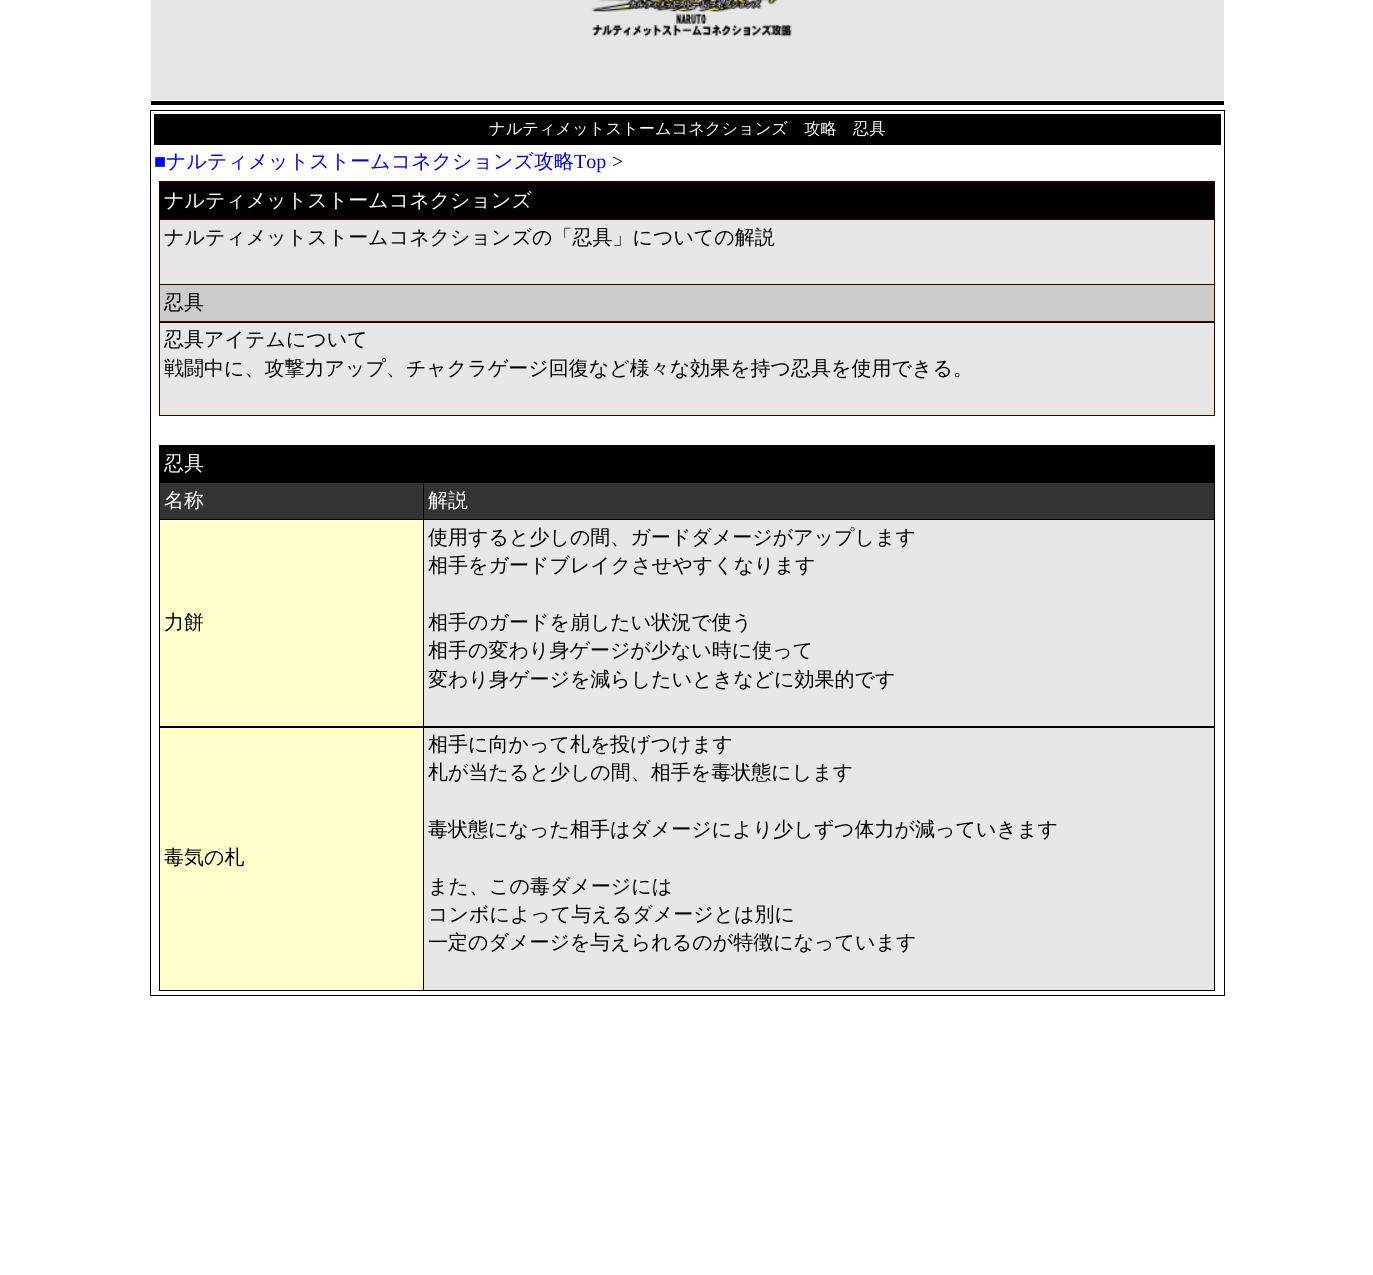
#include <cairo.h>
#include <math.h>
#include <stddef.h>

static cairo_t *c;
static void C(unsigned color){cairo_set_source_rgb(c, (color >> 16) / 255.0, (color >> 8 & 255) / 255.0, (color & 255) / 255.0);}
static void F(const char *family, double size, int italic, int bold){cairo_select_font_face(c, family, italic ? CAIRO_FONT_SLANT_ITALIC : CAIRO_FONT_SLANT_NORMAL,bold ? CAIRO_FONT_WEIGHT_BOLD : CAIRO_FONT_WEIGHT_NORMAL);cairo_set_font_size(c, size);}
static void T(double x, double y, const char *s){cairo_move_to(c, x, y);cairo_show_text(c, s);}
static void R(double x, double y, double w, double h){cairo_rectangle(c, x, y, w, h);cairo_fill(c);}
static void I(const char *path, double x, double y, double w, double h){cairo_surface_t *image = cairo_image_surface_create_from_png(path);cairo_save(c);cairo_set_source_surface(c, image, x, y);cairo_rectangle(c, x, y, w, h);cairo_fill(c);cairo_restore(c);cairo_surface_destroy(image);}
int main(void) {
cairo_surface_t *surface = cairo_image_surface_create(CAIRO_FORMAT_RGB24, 1373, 1275);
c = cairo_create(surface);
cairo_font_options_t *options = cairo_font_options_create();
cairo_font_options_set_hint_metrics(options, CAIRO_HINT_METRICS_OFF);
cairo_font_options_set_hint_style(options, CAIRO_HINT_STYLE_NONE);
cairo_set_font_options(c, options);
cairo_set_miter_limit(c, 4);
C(0xffffff);
cairo_paint(c);
C(0xe6e6e6);
R(151,0,1073,100);
I("1.png",591,0,201,37);
C(0x000000);
R(151,101,1073,4);
cairo_rectangle(c,150.5,110.5,1074,885);
cairo_set_line_width(c,1);
cairo_stroke(c);
R(154,114,1067,31);
F("WenQuanYi Zen Hei Medium",16.25,0,0);
C(0xffffff);
T(489,134,"ナルティメットストームコネクションズ　攻略　忍具");
F("Liberation Serif",20,0,0);
C(0x0000ff);
T(154,168,"■");
F("WenQuanYi Zen Hei Medium",20,0,0);
T(166,168,"ナルティメットストームコネクションズ攻略");
F("Liberation Serif",20,0,0);
T(574,168,"Top");
C(0x000000);
T(612,168,">");
C(0x330000);
R(159,181,1056,235);
C(0x000000);
R(160,183,1054,36);
F("WenQuanYi Zen Hei Medium",20,0,0);
C(0xffffff);
T(164,207,"ナルティメットストームコネクションズ");
C(0xe7e7e7);
R(160,220,1054,64);
C(0x000000);
T(164,244,"ナルティメットストームコネクションズの「忍具」についての解説");
C(0xcccccc);
R(160,285,1054,36);
C(0x000000);
T(164,309,"忍具");
C(0xe7e7e7);
R(160,323,1054,92);
C(0x000000);
T(164,346,"忍具アイテムについて");
T(164,375,"戦闘中に、攻撃力アップ、チャクラゲージ回復など様々な効果を持つ忍具を使用できる。");
R(159,445,1056,546);
C(0xffffff);
T(164,470,"忍具");
C(0x333333);
R(160,483,263,36);
C(0xffffff);
T(164,507,"名称");
C(0x333333);
R(424,483,790,36);
C(0xffffff);
T(428,507,"解説");
C(0xffffcc);
R(160,520,263,206);
C(0x000000);
T(164,629,"力餅");
C(0xe7e7e7);
R(424,520,790,206);
C(0x000000);
T(428,544,"使用すると少しの間、ガードダメージがアップします");
T(428,572,"相手をガードブレイクさせやすくなります");
T(428,629,"相手のガードを崩したい状況で使う");
T(428,657,"相手の変わり身ゲージが少ない時に使って");
T(428,686,"変わり身ゲージを減らしたいときなどに効果的です");
C(0xffffcc);
R(160,728,263,262);
C(0x000000);
T(164,864,"毒気の札");
C(0xe7e7e7);
R(424,728,790,262);
C(0x000000);
T(428,751,"相手に向かって札を投げつけます");
T(428,779,"札が当たると少しの間、相手を毒状態にします");
T(428,836,"毒状態になった相手はダメージにより少しずつ体力が減っていきます");
T(428,893,"また、この毒ダメージには");
T(428,921,"コンボによって与えるダメージとは別に");
T(428,949,"一定のダメージを与えられるのが特徴になっています");
cairo_surface_write_to_png(surface, "o.png");
cairo_font_options_destroy(options);
cairo_destroy(c);
cairo_surface_destroy(surface);
return 0;
}
